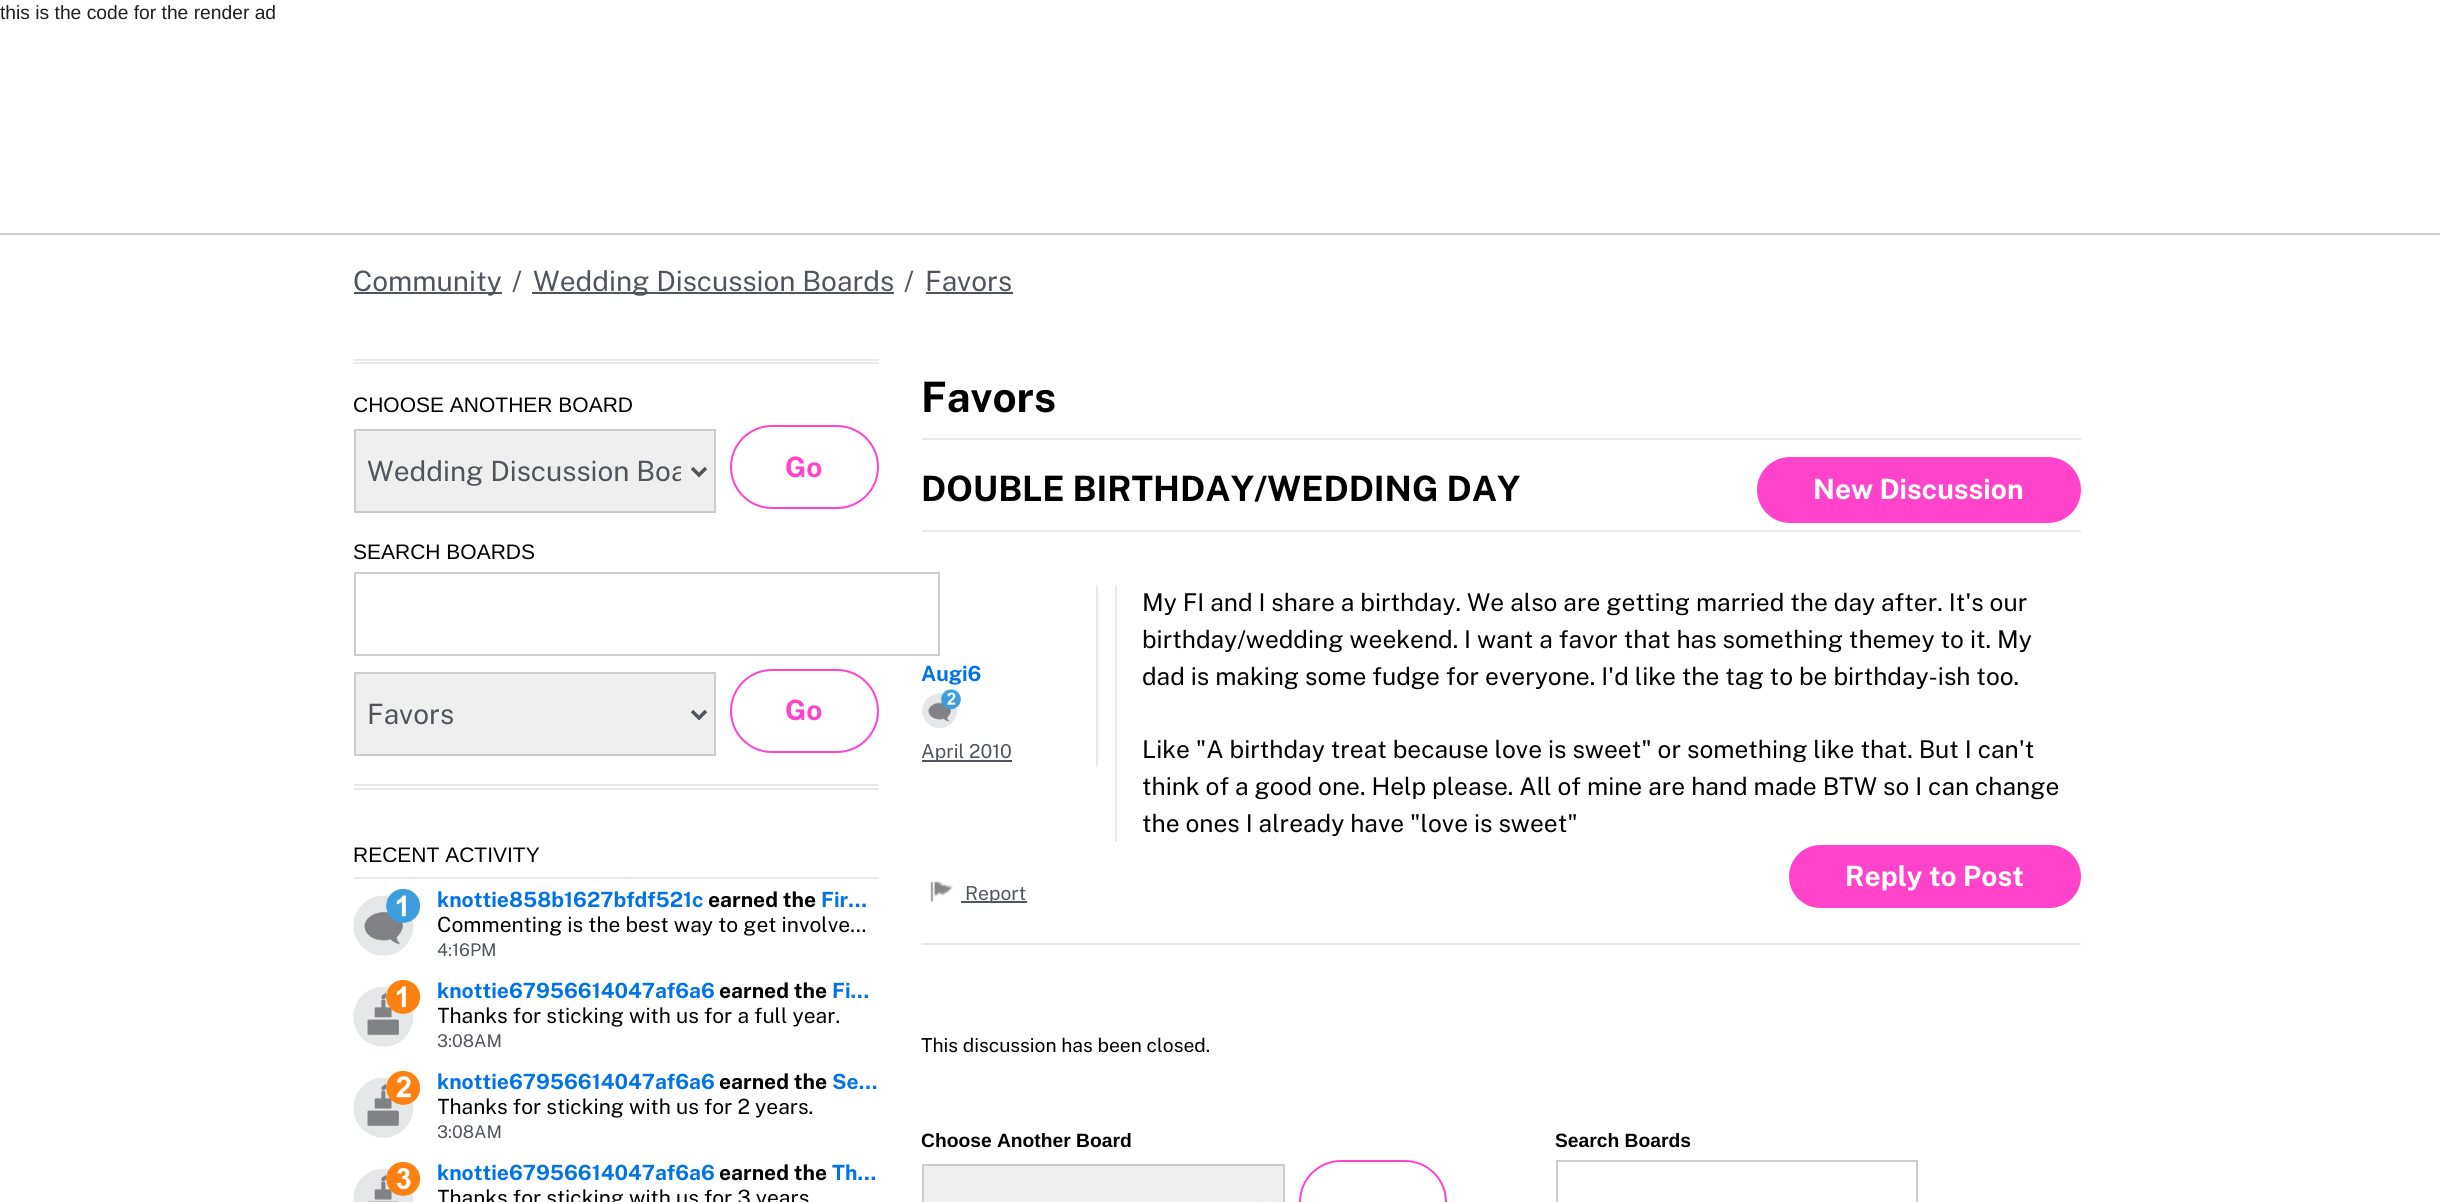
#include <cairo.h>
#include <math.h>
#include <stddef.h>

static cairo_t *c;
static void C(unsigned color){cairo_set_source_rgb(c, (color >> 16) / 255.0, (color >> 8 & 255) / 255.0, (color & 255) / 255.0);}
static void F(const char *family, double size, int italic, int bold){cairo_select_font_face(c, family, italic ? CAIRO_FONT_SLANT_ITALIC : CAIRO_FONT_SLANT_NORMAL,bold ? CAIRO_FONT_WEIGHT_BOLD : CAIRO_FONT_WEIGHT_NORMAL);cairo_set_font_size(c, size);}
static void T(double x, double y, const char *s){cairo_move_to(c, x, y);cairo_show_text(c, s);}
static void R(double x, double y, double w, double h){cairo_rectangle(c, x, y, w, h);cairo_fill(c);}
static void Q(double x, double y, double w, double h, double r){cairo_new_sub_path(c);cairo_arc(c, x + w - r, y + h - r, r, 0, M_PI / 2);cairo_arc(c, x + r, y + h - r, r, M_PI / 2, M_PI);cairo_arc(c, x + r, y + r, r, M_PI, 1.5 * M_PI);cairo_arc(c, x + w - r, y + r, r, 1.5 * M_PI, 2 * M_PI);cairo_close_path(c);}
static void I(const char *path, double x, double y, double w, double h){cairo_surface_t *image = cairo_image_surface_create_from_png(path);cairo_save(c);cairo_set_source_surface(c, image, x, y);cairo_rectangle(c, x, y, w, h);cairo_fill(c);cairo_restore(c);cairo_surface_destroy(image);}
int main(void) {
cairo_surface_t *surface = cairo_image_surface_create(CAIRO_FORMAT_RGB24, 2440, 1202);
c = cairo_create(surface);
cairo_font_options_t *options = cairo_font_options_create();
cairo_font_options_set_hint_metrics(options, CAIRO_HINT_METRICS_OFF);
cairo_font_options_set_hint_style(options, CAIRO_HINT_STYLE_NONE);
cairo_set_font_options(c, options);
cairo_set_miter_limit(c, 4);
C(0xffffff);
cairo_paint(c);
F("Liberation Sans",19.25,0,0);
C(0x1f1f1f);
T(0,19,"this is the code for the render ad");
C(0xcccccc);
R(0,233,2440,2);
C(0x51545c);
R(354,292,148,2);
F("Public Sans",28,0,0);
T(353,291,"Community");
T(512,291,"/");
R(532,292,362,2);
T(533,291,"Wedding Discussion Boards");
T(904,291,"/");
T(925,291,"Favors");
R(926,292,87,2);
C(0xe9e9e9);
R(354,359,525,2);
R(354,362,525,2);
R(354,784,525,2);
R(354,788,525,2);
F("Liberation Sans",21,0,0);
C(0x000000);
T(353,412,"CHOOSE ANOTHER BOARD");
C(0xefefef);
cairo_rectangle(c,355,430,360,82);
cairo_fill_preserve(c);
C(0xcaccd0);
cairo_stroke(c);
cairo_new_path(c);
cairo_move_to(c,692,468);
cairo_line_to(c,699,475);
cairo_line_to(c,706,468);
C(0x51545c);
cairo_set_line_width(c,3.5);
cairo_stroke(c);
cairo_save(c);
cairo_rectangle(c,368,453,313,37);
cairo_clip(c);
F("Public Sans",28,0,0);
T(367,481,"Wedding Discussion Boa");
cairo_restore(c);
Q(731,426,147,82,41);
C(0xff44cb);
cairo_set_line_width(c,2);
cairo_stroke(c);
F("Public Sans",28,0,1);
T(785,477,"Go");
F("Liberation Sans",21,0,0);
C(0x000000);
T(353,559,"SEARCH BOARDS");
cairo_rectangle(c,355,573,584,82);
C(0xcaccd0);
cairo_stroke(c);
C(0xefefef);
cairo_rectangle(c,355,673,360,82);
cairo_fill_preserve(c);
C(0xcaccd0);
cairo_stroke(c);
cairo_new_path(c);
cairo_move_to(c,692,711);
cairo_line_to(c,699,718);
cairo_line_to(c,706,711);
C(0x51545c);
cairo_set_line_width(c,3.5);
cairo_stroke(c);
F("Public Sans",28,0,0);
T(367,724,"Favors");
Q(731,670,147,82,41);
C(0xff44cb);
cairo_set_line_width(c,2);
cairo_stroke(c);
F("Public Sans",28,0,1);
T(785,720,"Go");
C(0xe9e9e9);
R(354,877,525,2);
F("Liberation Sans",21,0,0);
C(0x000000);
T(353,862,"RECENT ACTIVITY");
I("1.png",353,889,67,67);
cairo_save(c);
cairo_rectangle(c,438,889,441,25);
cairo_clip(c);
F("Public Sans",21,0,1);
C(0x0073e6);
T(437,907,"knottie858b1627bfdf521c");
cairo_restore(c);
F("Public Sans",21,0,1);
T(708,907,"earned the");
C(0x0073e6);
T(821,907,"Fir…");
cairo_save(c);
cairo_rectangle(c,438,914,441,24);
cairo_clip(c);
F("Public Sans",21,0,0);
C(0x000000);
T(437,932,"Commenting is the best way to get involve…");
cairo_restore(c);
F("Public Sans",17.5,0,0);
C(0x51545c);
T(437,956,"4:16PM");
I("2.png",353,980,67,67);
cairo_save(c);
cairo_rectangle(c,438,980,441,25);
cairo_clip(c);
F("Public Sans",21,0,1);
C(0x0073e6);
T(437,998,"knottie67956614047af6a6");
cairo_restore(c);
F("Public Sans",21,0,1);
C(0x000000);
T(719,998,"earned the");
C(0x0073e6);
T(832,998,"Fi…");
cairo_save(c);
cairo_rectangle(c,438,1005,441,24);
cairo_clip(c);
F("Public Sans",21,0,0);
C(0x000000);
T(437,1023,"Thanks for sticking with us for a full year.");
cairo_restore(c);
F("Public Sans",17.5,0,0);
C(0x51545c);
T(437,1047,"3:08AM");
I("3.png",353,1071,67,67);
cairo_save(c);
cairo_rectangle(c,438,1071,441,25);
cairo_clip(c);
F("Public Sans",21,0,1);
C(0x0073e6);
T(437,1089,"knottie67956614047af6a6");
cairo_restore(c);
F("Public Sans",21,0,1);
C(0x000000);
T(719,1089,"earned the");
C(0x0073e6);
T(832,1089,"Se…");
cairo_save(c);
cairo_rectangle(c,438,1096,441,24);
cairo_clip(c);
F("Public Sans",21,0,0);
C(0x000000);
T(437,1114,"Thanks for sticking with us for 2 years.");
cairo_restore(c);
F("Public Sans",17.5,0,0);
C(0x51545c);
T(437,1138,"3:08AM");
I("4.png",353,1162,67,40);
cairo_save(c);
cairo_rectangle(c,438,1162,441,25);
cairo_clip(c);
F("Public Sans",21,0,1);
C(0x0073e6);
T(437,1180,"knottie67956614047af6a6");
cairo_restore(c);
F("Public Sans",21,0,1);
C(0x000000);
T(719,1180,"earned the");
C(0x0073e6);
T(832,1180,"Th…");
cairo_save(c);
cairo_rectangle(c,438,1187,441,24);
cairo_clip(c);
F("Public Sans",21,0,0);
C(0x000000);
T(437,1205,"Thanks for sticking with us for 3 years");
cairo_restore(c);
C(0xe9e9e9);
R(922,438,1159,2);
F("Public Sans",42,0,1);
C(0x000000);
T(921,412,"Favors");
C(0xe9e9e9);
R(922,530,1159,2);
F("Public Sans",35,0,1);
C(0x000000);
T(921,501,"DOUBLE BIRTHDAY/WEDDING DAY");
C(0xe9e9e9);
R(922,943,1159,2);
R(1115,585,2,257);
F("Public Sans",24.5,0,0);
C(0x000000);
T(1142,611,"My FI and I share a birthday. We also are getting married the day after. It's our");
T(1142,648,"birthday/wedding weekend. I want a favor that has something themey to it. My");
T(1142,685,"dad is making some fudge for everyone. I'd like the tag to be birthday-ish too.");
T(1142,758,"Like \"A birthday treat because love is sweet\" or something like that. But I can't");
T(1142,795,"think of a good one. Help please. All of mine are hand made BTW so I can change");
T(1142,832,"the ones I already have \"love is sweet\"");
C(0xff44cb);
Q(1789,845,292,63,31.5);
cairo_fill(c);
F("Public Sans",28,0,1);
C(0xffffff);
T(1845,886,"Reply to Post");
I("5.png",930,881,23,21);
C(0x51545c);
R(961,901,66,2);
F("Public Sans",19.25,0,0);
T(965,900,"Report");
C(0xe9e9e9);
R(1096,585,2,182);
F("Public Sans",21,0,1);
C(0x0073e6);
T(921,681,"Augi6");
I("6.png",922,689,39,39);
C(0x51545c);
R(922,760,90,2);
F("Public Sans",19.25,0,0);
T(921,758,"April 2010");
C(0xff44cb);
Q(1757,457,324,66,33);
cairo_fill(c);
F("Public Sans",28,0,1);
C(0xffffff);
T(1813,499,"New Discussion");
F("Public Sans",19.25,0,0);
C(0x000000);
T(921,1052,"This discussion has been closed.");
F("Liberation Sans",19.25,0,1);
T(921,1147,"Choose Another Board");
T(1555,1147,"Search Boards");
cairo_rectangle(c,1557,1161,360,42);
C(0xcaccd0);
cairo_stroke(c);
C(0xefefef);
cairo_rectangle(c,923,1165,361,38);
cairo_fill_preserve(c);
C(0xcaccd0);
cairo_stroke(c);
cairo_new_path(c);
cairo_move_to(c,1261,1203);
cairo_line_to(c,1268,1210);
cairo_line_to(c,1275,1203);
C(0x51545c);
cairo_set_line_width(c,3.5);
cairo_stroke(c);
Q(1300,1161,146,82,41);
C(0xff44cb);
cairo_set_line_width(c,2);
cairo_stroke(c);
cairo_surface_write_to_png(surface, "o.png");
cairo_font_options_destroy(options);
cairo_destroy(c);
cairo_surface_destroy(surface);
return 0;
}
